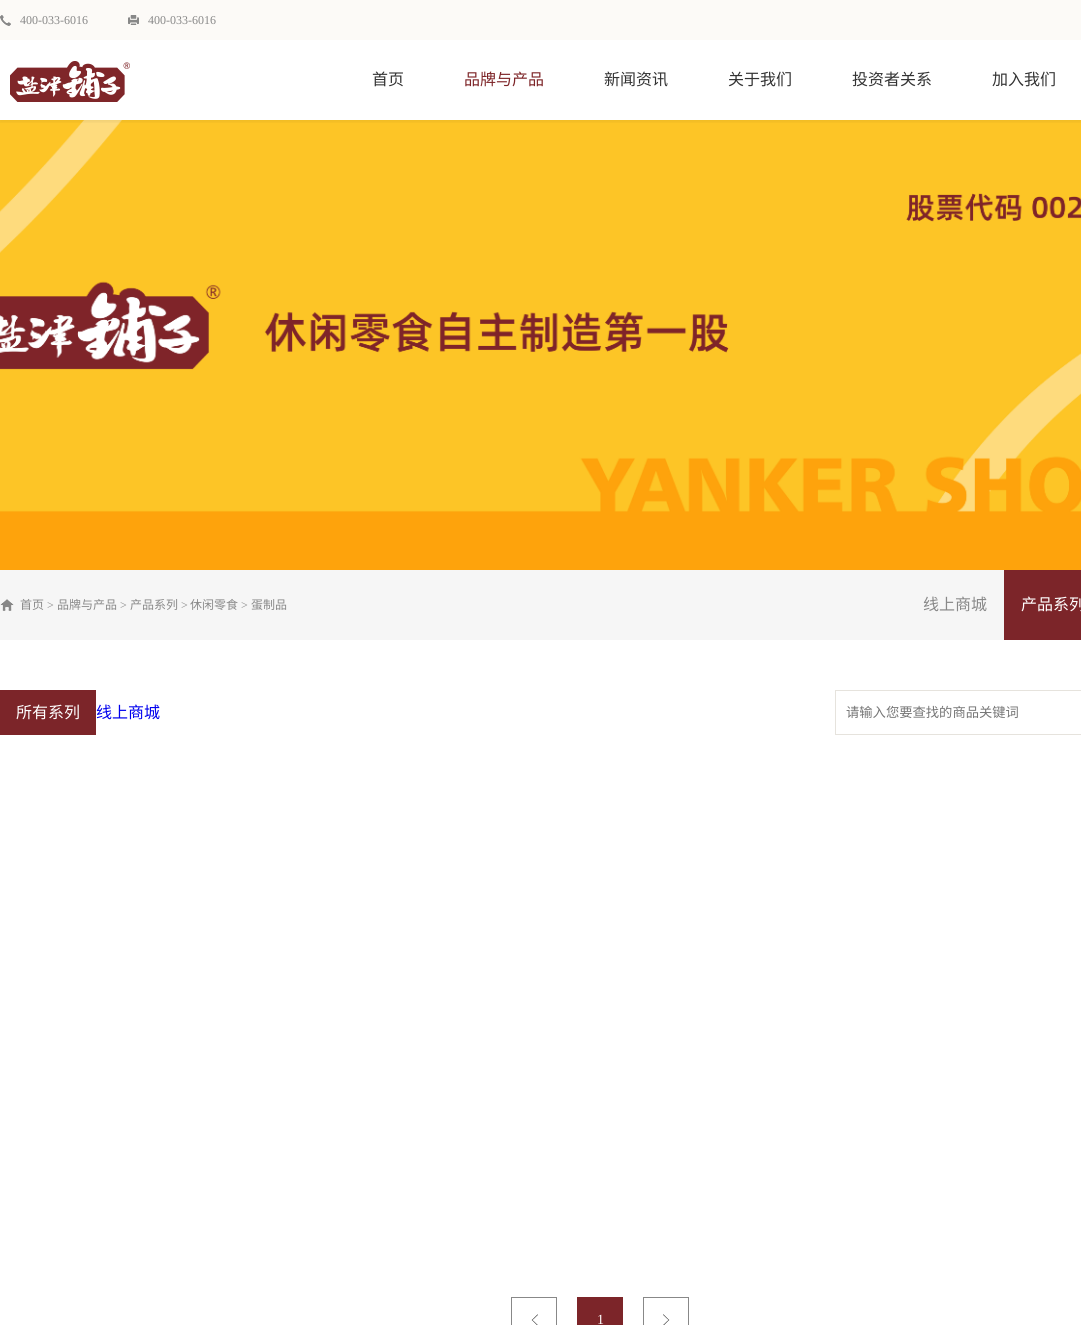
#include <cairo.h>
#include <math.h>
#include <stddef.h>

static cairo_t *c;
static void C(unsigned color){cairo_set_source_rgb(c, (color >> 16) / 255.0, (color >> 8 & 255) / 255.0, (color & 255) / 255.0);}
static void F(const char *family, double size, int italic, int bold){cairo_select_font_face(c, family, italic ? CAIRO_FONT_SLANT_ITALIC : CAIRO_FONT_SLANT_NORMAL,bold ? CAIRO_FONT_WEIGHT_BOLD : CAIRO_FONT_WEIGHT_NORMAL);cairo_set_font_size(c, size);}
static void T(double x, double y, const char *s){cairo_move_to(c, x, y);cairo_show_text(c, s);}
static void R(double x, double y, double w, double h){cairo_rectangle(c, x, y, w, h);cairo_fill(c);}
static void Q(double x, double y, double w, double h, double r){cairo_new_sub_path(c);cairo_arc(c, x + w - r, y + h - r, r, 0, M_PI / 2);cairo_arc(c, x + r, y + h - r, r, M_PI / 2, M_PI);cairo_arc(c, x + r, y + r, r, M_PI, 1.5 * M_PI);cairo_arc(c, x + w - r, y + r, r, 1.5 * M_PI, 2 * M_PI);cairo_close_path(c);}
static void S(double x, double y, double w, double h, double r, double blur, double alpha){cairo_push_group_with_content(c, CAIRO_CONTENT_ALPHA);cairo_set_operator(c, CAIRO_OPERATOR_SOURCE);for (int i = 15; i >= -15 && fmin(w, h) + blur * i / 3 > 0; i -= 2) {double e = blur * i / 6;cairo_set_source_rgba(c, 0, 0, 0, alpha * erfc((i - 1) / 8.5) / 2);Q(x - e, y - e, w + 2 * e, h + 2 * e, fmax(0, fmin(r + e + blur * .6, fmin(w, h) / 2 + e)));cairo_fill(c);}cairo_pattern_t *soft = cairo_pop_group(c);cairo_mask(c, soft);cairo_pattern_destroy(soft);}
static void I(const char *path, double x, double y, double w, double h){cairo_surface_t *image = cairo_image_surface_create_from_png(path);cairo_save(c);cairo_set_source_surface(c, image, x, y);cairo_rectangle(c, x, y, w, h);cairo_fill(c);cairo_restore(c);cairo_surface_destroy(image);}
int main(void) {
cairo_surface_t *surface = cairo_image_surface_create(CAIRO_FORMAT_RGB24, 1081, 1325);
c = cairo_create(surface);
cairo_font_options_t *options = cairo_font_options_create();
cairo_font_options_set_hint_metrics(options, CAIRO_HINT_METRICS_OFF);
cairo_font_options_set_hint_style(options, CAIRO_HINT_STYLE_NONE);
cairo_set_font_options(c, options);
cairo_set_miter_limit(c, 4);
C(0xffffff);
cairo_paint(c);
I("4.png",0,120,1081,450);
cairo_save(c);
cairo_rectangle(c,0,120,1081,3);
cairo_clip(c);
C(0x000000);
S(0,0,1081,120,0,4,.1);
cairo_restore(c);
C(0xfcfaf7);
R(0,0,1081,40);
I("1.png",0,15,11,11);
F("Liberation Serif",12,0,0);
C(0x888888);
T(20,24,"400-033-6016");
I("2.png",128,15,11,10);
T(148,24,"400-033-6016");
I("3.png",10,61,120,41);
F("Noto Sans CJK SC",16,0,0);
C(0x333333);
T(372,85,"首页");
C(0x7d2427);
T(464,85,"品牌与产品");
C(0x333333);
T(604,85,"新闻资讯");
T(728,85,"关于我们");
T(852,85,"投资者关系");
T(992,85,"加入我们");
C(0xf6f6f6);
R(0,570,1004,70);
I("5.png",0,599,14,12);
F("Noto Sans CJK SC",12,0,0);
C(0x888888);
T(20,609,"首页");
F("Liberation Serif",12,0,0);
T(47,609,">");
F("Noto Sans CJK SC",12,0,0);
T(57,609,"品牌与产品");
F("Liberation Serif",12,0,0);
T(120,609,">");
F("Noto Sans CJK SC",12,0,0);
T(130,609,"产品系列");
F("Liberation Serif",12,0,0);
T(181,609,">");
F("Noto Sans CJK SC",12,0,0);
T(190,609,"休闲零食");
F("Liberation Serif",12,0,0);
T(241,609,">");
F("Noto Sans CJK SC",12,0,0);
T(251,609,"蛋制品");
F("Noto Sans CJK SC",16,0,0);
T(923,610,"线上商城");
C(0x7c2529);
R(1004,570,77,70);
C(0xffffff);
T(1021,610,"产品系列");
C(0x7c2529);
R(0,690,96,45);
C(0xffffff);
T(16,718,"所有系列");
C(0x0000ee);
T(96,718,"线上商城");
cairo_rectangle(c,835.5,690.5,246,44);
C(0xe6e3dd);
cairo_set_line_width(c,1);
cairo_stroke(c);
F("Noto Sans CJK SC",13.3,0,0);
C(0x757575);
T(846,717,"请输入您要查找的商品关键词");
I("6.png",531,1314,7,11);
cairo_rectangle(c,511.5,1297.5,45,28);
C(0x888888);
cairo_stroke(c);
C(0x7c2529);
R(577,1297,46,28);
F("Liberation Serif",14,0,0);
C(0xffffff);
T(597,1324,"1");
I("7.png",663,1314,7,11);
cairo_rectangle(c,643.5,1297.5,45,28);
C(0x888888);
cairo_stroke(c);
cairo_surface_write_to_png(surface, "o.png");
cairo_font_options_destroy(options);
cairo_destroy(c);
cairo_surface_destroy(surface);
return 0;
}
